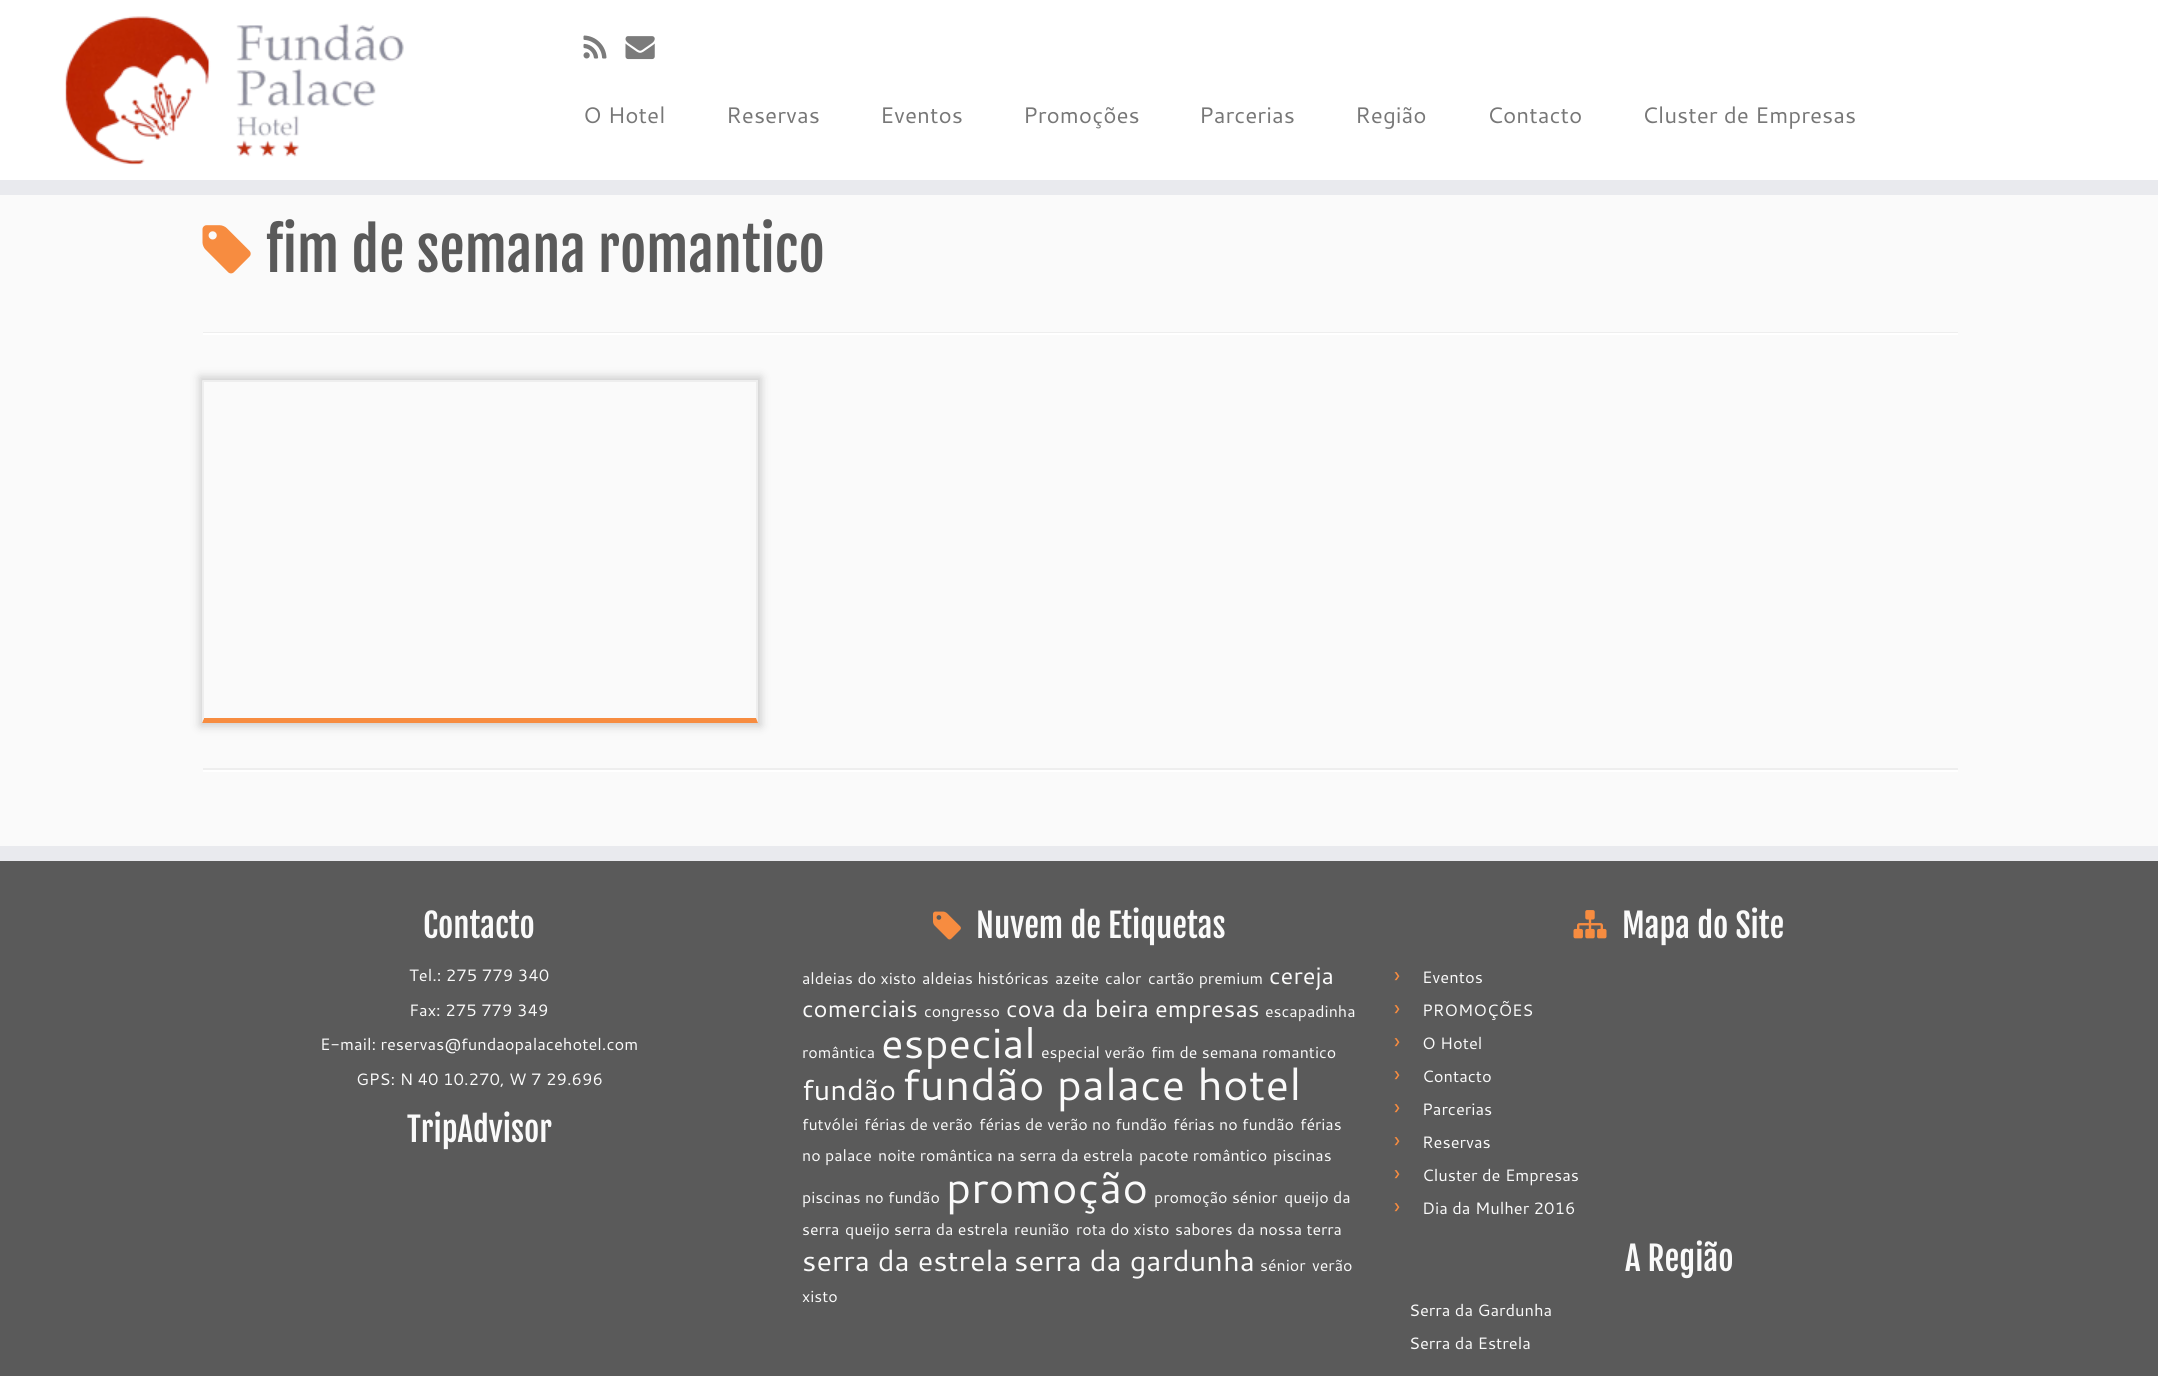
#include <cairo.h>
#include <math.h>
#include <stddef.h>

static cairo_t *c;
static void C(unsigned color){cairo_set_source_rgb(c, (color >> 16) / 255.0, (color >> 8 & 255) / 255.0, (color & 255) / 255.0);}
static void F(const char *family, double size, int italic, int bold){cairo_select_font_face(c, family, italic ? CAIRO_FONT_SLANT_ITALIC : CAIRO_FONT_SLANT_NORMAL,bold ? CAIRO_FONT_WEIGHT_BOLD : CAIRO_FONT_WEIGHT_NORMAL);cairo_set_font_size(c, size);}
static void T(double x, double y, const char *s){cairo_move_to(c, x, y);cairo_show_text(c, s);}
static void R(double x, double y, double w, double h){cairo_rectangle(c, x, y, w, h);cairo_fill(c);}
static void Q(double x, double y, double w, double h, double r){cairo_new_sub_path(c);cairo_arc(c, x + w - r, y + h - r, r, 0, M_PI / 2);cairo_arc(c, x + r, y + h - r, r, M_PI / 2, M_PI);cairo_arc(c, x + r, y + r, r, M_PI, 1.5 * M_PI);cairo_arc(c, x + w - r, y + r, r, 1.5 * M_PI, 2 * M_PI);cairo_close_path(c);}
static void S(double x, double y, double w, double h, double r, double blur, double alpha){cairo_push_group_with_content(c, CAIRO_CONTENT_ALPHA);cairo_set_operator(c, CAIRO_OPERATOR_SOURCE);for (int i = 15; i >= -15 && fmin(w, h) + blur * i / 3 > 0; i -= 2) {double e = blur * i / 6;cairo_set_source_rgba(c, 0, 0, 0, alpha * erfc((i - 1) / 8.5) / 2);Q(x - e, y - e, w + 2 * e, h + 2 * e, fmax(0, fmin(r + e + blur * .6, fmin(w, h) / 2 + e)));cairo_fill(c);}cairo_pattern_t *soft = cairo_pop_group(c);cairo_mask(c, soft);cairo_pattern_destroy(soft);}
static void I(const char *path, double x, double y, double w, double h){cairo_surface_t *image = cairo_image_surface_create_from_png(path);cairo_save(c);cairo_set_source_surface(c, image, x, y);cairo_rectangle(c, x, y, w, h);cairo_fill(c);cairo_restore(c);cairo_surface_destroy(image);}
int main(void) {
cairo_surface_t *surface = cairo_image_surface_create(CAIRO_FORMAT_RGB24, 2158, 1376);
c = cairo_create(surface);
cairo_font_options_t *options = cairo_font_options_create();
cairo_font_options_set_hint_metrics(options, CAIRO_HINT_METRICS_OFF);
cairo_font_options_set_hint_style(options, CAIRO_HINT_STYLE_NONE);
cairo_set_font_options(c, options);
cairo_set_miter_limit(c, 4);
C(0xfafafa);
cairo_paint(c);
C(0xffffff);
R(0,0,2158,180);
C(0xe9eaee);
R(0,180,2158,15);
I("1.png",65,16,339,149);
I("2.png",583,35,24,24);
I("3.png",625,36,30,24);
F("Cantarell",22.5,0,0);
C(0x777777);
T(583,123,"O Hotel");
T(726,123,"Reservas");
T(880,123,"Eventos");
T(1023,123,"Promoções");
T(1199,123,"Parcerias");
T(1355,123,"Região");
T(1487,123,"Contacto");
T(1642,123,"Cluster de Empresas");
I("4.png",202,225,49,49);
F("Fjalla One",57,0,0);
C(0x5a5a5a);
T(266,272,"fim de semana romantico");
C(0xeeeeee);
R(203,332,1755,1);
C(0xffffff);
R(203,333,1755,2);
cairo_save(c);
cairo_set_fill_rule(c,CAIRO_FILL_RULE_EVEN_ODD);
cairo_new_path(c);
cairo_move_to(c,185,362);
cairo_line_to(c,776,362);
cairo_line_to(c,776,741);
cairo_line_to(c,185,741);
cairo_close_path(c);
cairo_move_to(c,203,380);
cairo_line_to(c,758,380);
cairo_line_to(c,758,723);
cairo_line_to(c,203,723);
cairo_close_path(c);
cairo_clip(c);
C(0xcccccc);
S(200,377,561,349,0,4.5,1);
cairo_restore(c);
C(0xeeeeee);
R(203,380,555,2);
cairo_new_path(c);
cairo_move_to(c,758,380);
cairo_line_to(c,758,723);
cairo_line_to(c,756,718);
cairo_line_to(c,756,381);
cairo_close_path(c);
cairo_fill(c);
C(0xf78c40);
cairo_new_path(c);
cairo_move_to(c,758,723);
cairo_line_to(c,202,723);
cairo_line_to(c,204,718);
cairo_line_to(c,756,718);
cairo_close_path(c);
cairo_fill(c);
C(0xeeeeee);
cairo_new_path(c);
cairo_move_to(c,202,723);
cairo_line_to(c,202,380);
cairo_line_to(c,204,381);
cairo_line_to(c,204,718);
cairo_close_path(c);
cairo_fill(c);
R(203,768,1755,2);
C(0xffffff);
R(203,770,1755,2);
C(0x5a5a5a);
R(0,861,2158,515);
C(0xe9eaee);
R(0,846,2158,15);
F("Fjalla One",33,0,0);
C(0xfafafa);
T(423,938,"Contacto");
F("Cantarell",16.5,0,0);
T(409,981,"Tel.: 275 779 340");
T(409,1016,"Fax: 275 779 349");
T(320,1050,"E-mail: reservas@fundaopalacehotel.com");
T(356,1085,"GPS: N 40 10.270, W 7 29.696");
F("Fjalla One",33,0,0);
T(407,1142,"TripAdvisor");
I("5.png",933,911,28,29);
T(976,938,"Nuvem de Etiquetas");
F("Cantarell",16,0,0);
T(802,984,"aldeias do xisto");
T(922,984,"aldeias históricas");
T(1055,984,"azeite");
T(1105,984,"calor");
T(1148,984,"cartão premium");
F("Cantarell",23.75,0,0);
T(1269,984,"cereja");
T(802,1017,"comerciais");
F("Cantarell",16,0,0);
T(924,1017,"congresso");
F("Cantarell",23.75,0,0);
T(1006,1017,"cova da beira");
T(1155,1017,"empresas");
F("Cantarell",16,0,0);
T(1265,1017,"escapadinha");
T(802,1058,"romântica");
F("Cantarell",42,0,0);
T(881,1058,"especial");
F("Cantarell",16,0,0);
T(1041,1058,"especial verão");
T(1151,1058,"fim de semana romantico");
F("Cantarell",29,0,0);
T(802,1100,"fundão");
F("Cantarell",44,0,0);
T(902,1100,"fundão palace hotel");
F("Cantarell",16,0,0);
T(802,1130,"futvólei");
T(864,1130,"férias de verão");
T(979,1130,"férias de verão no fundão");
T(1173,1130,"férias no fundão");
T(1300,1130,"férias");
T(802,1161,"no palace");
T(878,1161,"noite romântica na serra da estrela");
T(1139,1161,"pacote romântico");
T(1273,1161,"piscinas");
T(802,1203,"piscinas no fundão");
F("Cantarell",44,0,0);
T(946,1203,"promoção");
F("Cantarell",16,0,0);
T(1154,1203,"promoção sénior");
T(1284,1203,"queijo da");
T(802,1235,"serra");
T(845,1235,"queijo serra da estrela");
T(1014,1235,"reunião");
T(1076,1235,"rota do xisto");
T(1175,1235,"sabores da nossa terra");
F("Cantarell",29,0,0);
T(802,1271,"serra da estrela");
T(1014,1271,"serra da gardunha");
F("Cantarell",16,0,0);
T(1260,1271,"sénior");
T(1312,1271,"verão");
T(802,1302,"xisto");
I("6.png",1573,910,34,29);
F("Fjalla One",33,0,0);
T(1622,938,"Mapa do Site");
F("Cantarell",22.5,0,0);
C(0xf78c40);
T(1394,983,"›");
F("Cantarell",16.5,0,0);
C(0xfafafa);
T(1422,983,"Eventos");
F("Cantarell",22.5,0,0);
C(0xf78c40);
T(1394,1016,"›");
F("Cantarell",16.5,0,0);
C(0xfafafa);
T(1422,1016,"PROMOÇÕES");
F("Cantarell",22.5,0,0);
C(0xf78c40);
T(1394,1049,"›");
F("Cantarell",16.5,0,0);
C(0xfafafa);
T(1422,1049,"O Hotel");
F("Cantarell",22.5,0,0);
C(0xf78c40);
T(1394,1082,"›");
F("Cantarell",16.5,0,0);
C(0xfafafa);
T(1422,1082,"Contacto");
F("Cantarell",22.5,0,0);
C(0xf78c40);
T(1394,1115,"›");
F("Cantarell",16.5,0,0);
C(0xfafafa);
T(1422,1115,"Parcerias");
F("Cantarell",22.5,0,0);
C(0xf78c40);
T(1394,1148,"›");
F("Cantarell",16.5,0,0);
C(0xfafafa);
T(1422,1148,"Reservas");
F("Cantarell",22.5,0,0);
C(0xf78c40);
T(1394,1181,"›");
F("Cantarell",16.5,0,0);
C(0xfafafa);
T(1422,1181,"Cluster de Empresas");
F("Cantarell",22.5,0,0);
C(0xf78c40);
T(1394,1214,"›");
F("Cantarell",16.5,0,0);
C(0xfafafa);
T(1422,1214,"Dia da Mulher 2016");
F("Fjalla One",33,0,0);
T(1625,1271,"A Região");
F("Cantarell",16.5,0,0);
T(1409,1316,"Serra da Gardunha");
T(1409,1349,"Serra da Estrela");
cairo_surface_write_to_png(surface, "o.png");
cairo_font_options_destroy(options);
cairo_destroy(c);
cairo_surface_destroy(surface);
return 0;
}
